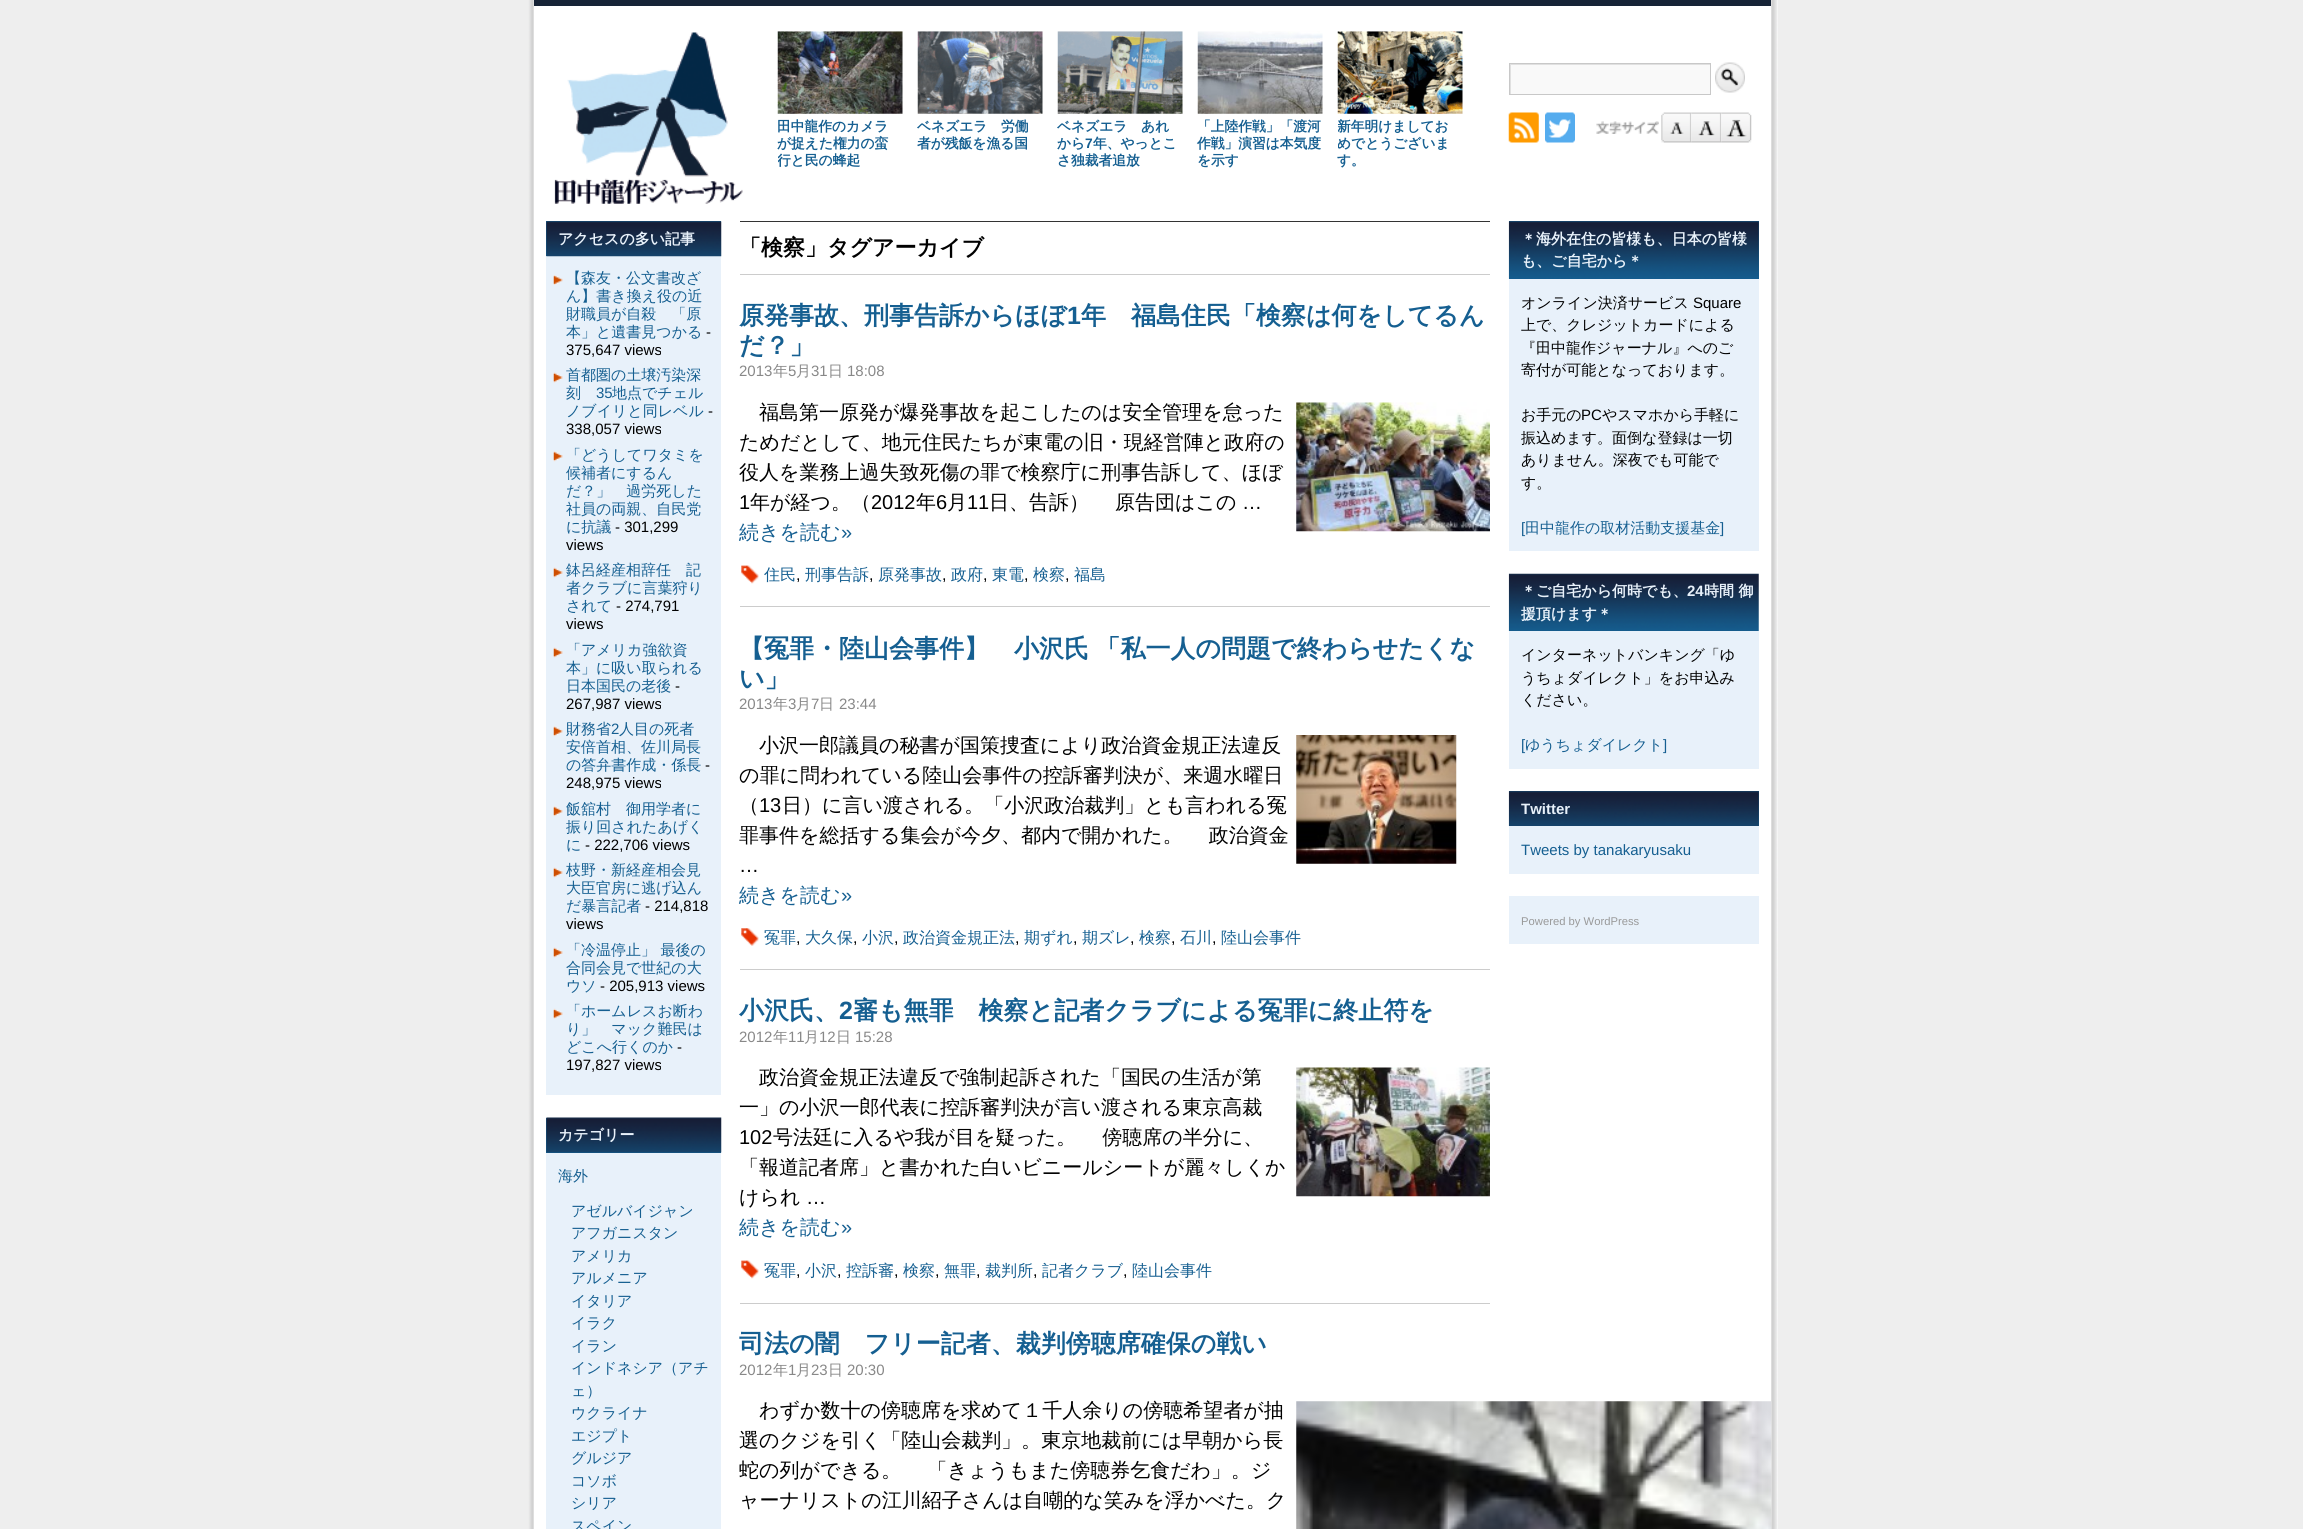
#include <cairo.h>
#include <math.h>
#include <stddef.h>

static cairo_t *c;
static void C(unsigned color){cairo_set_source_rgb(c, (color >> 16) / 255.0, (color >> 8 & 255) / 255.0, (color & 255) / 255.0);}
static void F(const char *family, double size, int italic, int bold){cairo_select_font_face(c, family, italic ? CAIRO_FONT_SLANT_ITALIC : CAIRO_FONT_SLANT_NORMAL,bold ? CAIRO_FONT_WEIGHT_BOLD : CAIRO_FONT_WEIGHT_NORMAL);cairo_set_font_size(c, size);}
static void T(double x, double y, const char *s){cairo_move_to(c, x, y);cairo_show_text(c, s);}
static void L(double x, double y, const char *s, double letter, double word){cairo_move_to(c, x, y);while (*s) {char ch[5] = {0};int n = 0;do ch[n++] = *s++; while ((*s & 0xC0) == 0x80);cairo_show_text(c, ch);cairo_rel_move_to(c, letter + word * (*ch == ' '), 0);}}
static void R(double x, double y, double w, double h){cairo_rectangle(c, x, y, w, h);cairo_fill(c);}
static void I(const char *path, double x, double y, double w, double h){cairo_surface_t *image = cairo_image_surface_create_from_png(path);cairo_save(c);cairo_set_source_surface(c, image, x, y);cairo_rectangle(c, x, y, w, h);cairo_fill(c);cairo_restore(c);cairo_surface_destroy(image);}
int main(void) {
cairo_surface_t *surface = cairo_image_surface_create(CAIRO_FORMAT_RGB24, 2303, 1529);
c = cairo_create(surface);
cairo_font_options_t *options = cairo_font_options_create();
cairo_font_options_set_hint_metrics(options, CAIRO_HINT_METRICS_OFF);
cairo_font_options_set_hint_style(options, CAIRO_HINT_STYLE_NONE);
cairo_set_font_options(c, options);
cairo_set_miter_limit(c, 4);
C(0xeeeeee);
cairo_paint(c);
C(0xffffff);
R(1777,0,1,1529);
I("1.png",528,0,1250,1529);
C(0x162336);
R(534,0,1237,6);
I("2.png",554,32,189,172);
C(0xf9f9f9);
R(1511,65,199,29);
cairo_save(c);
cairo_rectangle(c,1510,64,200,30);
cairo_clip(c);
C(0xe0e0e0);
cairo_set_fill_rule(c,CAIRO_FILL_RULE_EVEN_ODD);
cairo_new_path(c);
cairo_move_to(c,1386,-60);
cairo_line_to(c,1834,-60);
cairo_line_to(c,1834,218);
cairo_line_to(c,1386,218);
cairo_close_path(c);
cairo_move_to(c,1511,65);
cairo_line_to(c,1711,65);
cairo_line_to(c,1711,95);
cairo_line_to(c,1511,95);
cairo_close_path(c);
cairo_fill(c);
cairo_restore(c);
cairo_rectangle(c,1509.5,63.5,201,31);
C(0xc8c8c8);
cairo_set_line_width(c,1);
cairo_stroke(c);
I("3.png",1715,62,30,31);
I("4.png",777,31,126,83);
F("WenQuanYi Zen Hei",13.75,0,1);
C(0x155f91);
T(777,131,"田中龍作のカメラ");
T(777,148,"が捉えた権力の蛮");
cairo_save(c);
cairo_rectangle(c,778,31,140,162);
cairo_clip(c);
T(777,165,"行と民の蜂起");
cairo_restore(c);
I("5.png",917,31,126,83);
T(917,131,"ベネズエラ　労働");
T(917,148,"者が残飯を漁る国");
I("6.png",1057,31,126,83);
T(1057,131,"ベネズエラ　あれ");
T(1057,148,"から");
F("Liberation Sans",13.75,0,1);
T(1085,148,"7");
F("WenQuanYi Zen Hei",13.75,0,1);
T(1093,148,"年、やっとこ");
T(1057,165,"さ独裁者追放");
I("7.png",1197,31,126,83);
T(1197,131,"「上陸作戦」「渡河");
T(1197,148,"作戦」演習は本気度");
T(1197,165,"を示す");
I("8.png",1337,31,126,83);
cairo_save(c);
cairo_rectangle(c,1338,31,140,162);
cairo_clip(c);
T(1337,131,"新年明けましてお");
T(1337,148,"めでとうございま");
cairo_restore(c);
T(1337,165,"す。");
I("9.png",1508,112,31,31);
I("10.png",1545,112,30,31);
I("11.png",1596,121,63,13);
I("12.png",1661,112,31,31);
I("13.png",1691,112,31,31);
I("14.png",1721,112,31,31);
C(0xe8f1fa);
R(546,256,175,839);
C(0x155f91);
R(546,221,175,35);
I("15.png",546,221,176,36);
F("WenQuanYi Zen Hei",15,0,1);
C(0xe8f1fa);
T(558,244,"アクセスの多い記事");
I("16.png",553,275,10,10);
F("WenQuanYi Zen Hei Medium",15,0,0);
C(0x155f91);
T(566,283,"【森友・公文書改ざ");
T(566,301,"ん】書き換え役の近");
T(566,319,"財職員が自殺　「原");
T(566,337,"本」と遺書見つかる");
F("Liberation Sans",15,0,0);
C(0x000000);
T(706,337,"-");
T(566,355,"375,647 views");
I("17.png",553,372,10,11);
F("WenQuanYi Zen Hei Medium",15,0,0);
C(0x155f91);
T(566,380,"首都圏の土壌汚染深");
T(566,398,"刻");
F("Liberation Sans",15,0,0);
T(596,398,"35");
F("WenQuanYi Zen Hei Medium",15,0,0);
T(612,398,"地点でチェル");
T(566,416,"ノブイリと同レベル");
F("Liberation Sans",15,0,0);
C(0x000000);
T(708,416,"-");
T(566,434,"338,057 views");
I("18.png",553,451,10,11);
F("WenQuanYi Zen Hei Medium",15,0,0);
C(0x155f91);
T(566,460,"「どうしてワタミを");
T(566,478,"候補者にするん");
T(566,496,"だ？」　過労死した");
T(566,514,"社員の両親、自民党");
T(566,532,"に抗議");
F("Liberation Sans",15,0,0);
C(0x000000);
T(615,532,"- 301,299");
T(566,550,"views");
I("17.png",553,567,10,11);
F("WenQuanYi Zen Hei Medium",15,0,0);
C(0x155f91);
T(566,575,"鉢呂経産相辞任　記");
T(566,593,"者クラブに言葉狩り");
T(566,611,"されて");
F("Liberation Sans",15,0,0);
C(0x000000);
T(616,611,"- 274,791");
T(566,629,"views");
I("17.png",553,647,10,11);
F("WenQuanYi Zen Hei Medium",15,0,0);
C(0x155f91);
T(566,655,"「アメリカ強欲資");
T(566,673,"本」に吸い取られる");
T(566,691,"日本国民の老後");
F("Liberation Sans",15,0,0);
C(0x000000);
T(675,691,"-");
T(566,709,"267,987 views");
I("18.png",553,726,10,11);
F("WenQuanYi Zen Hei Medium",15,0,0);
C(0x155f91);
T(566,734,"財務省");
F("Liberation Sans",15,0,0);
T(611,734,"2");
F("WenQuanYi Zen Hei Medium",15,0,0);
T(619,734,"人目の死者");
T(566,752,"安倍首相、佐川局長");
T(566,770,"の答弁書作成・係長");
F("Liberation Sans",15,0,0);
C(0x000000);
T(705,770,"-");
T(566,788,"248,975 views");
I("18.png",553,806,10,11);
F("WenQuanYi Zen Hei Medium",15,0,0);
C(0x155f91);
T(566,814,"飯舘村　御用学者に");
T(566,832,"振り回されたあげく");
T(566,850,"に");
F("Liberation Sans",15,0,0);
C(0x000000);
T(585,850,"- 222,706 views");
I("17.png",553,867,10,11);
F("WenQuanYi Zen Hei Medium",15,0,0);
C(0x155f91);
T(566,875,"枝野・新経産相会見");
T(566,893,"大臣官房に逃げ込ん");
T(566,911,"だ暴言記者");
F("Liberation Sans",15,0,0);
C(0x000000);
T(645,911,"- 214,818");
T(566,929,"views");
I("17.png",553,947,10,11);
F("WenQuanYi Zen Hei Medium",15,0,0);
C(0x155f91);
T(566,955,"「冷温停止」 最後の");
T(566,973,"合同会見で世紀の大");
T(566,991,"ウソ");
F("Liberation Sans",15,0,0);
C(0x000000);
T(600,991,"- 205,913 views");
I("19.png",553,1008,10,11);
F("WenQuanYi Zen Hei Medium",15,0,0);
C(0x155f91);
T(566,1016,"「ホームレスお断わ");
T(566,1034,"り」　マック難民は");
T(566,1052,"どこへ行くのか");
F("Liberation Sans",15,0,0);
C(0x000000);
T(677,1052,"-");
T(566,1070,"197,827 views");
C(0xe8f1fa);
R(546,1153,175,376);
C(0x155f91);
R(546,1118,175,35);
I("20.png",546,1117,176,36);
F("WenQuanYi Zen Hei",15,0,1);
C(0xe8f1fa);
T(558,1140,"カテゴリー");
F("WenQuanYi Zen Hei Medium",15,0,0);
C(0x155f91);
T(558,1181,"海外");
T(571,1216,"アゼルバイジャン");
T(571,1238,"アフガニスタン");
T(571,1261,"アメリカ");
T(571,1283,"アルメニア");
T(571,1306,"イタリア");
T(571,1328,"イラク");
T(571,1351,"イラン");
T(571,1373,"インドネシア（アチ");
T(571,1396,"ェ）");
T(571,1418,"ウクライナ");
T(571,1441,"エジプト");
T(571,1463,"グルジア");
T(571,1486,"コソボ");
T(571,1508,"シリア");
T(571,1531,"スペイン");
C(0x333333);
R(740,221,750,1);
C(0xcccccc);
R(740,274,750,1);
F("WenQuanYi Zen Hei",22,0,1);
C(0x000000);
T(739,255,"「検察」タグアーカイブ");
C(0xcccccc);
R(740,606,750,1);
F("WenQuanYi Zen Hei",25,0,1);
C(0x155f91);
T(739,324,"原発事故、刑事告訴からほぼ");
F("Liberation Sans",25,0,1);
T(1067,324,"1");
F("WenQuanYi Zen Hei",25,0,1);
T(1081,324,"年　福島住民「検察は何をしてるん");
T(739,354,"だ？」");
F("Liberation Sans",15,0,0);
C(0x888888);
T(739,376,"2013");
F("WenQuanYi Zen Hei Medium",15,0,0);
T(773,376,"年");
F("Liberation Sans",15,0,0);
T(788,376,"5");
F("WenQuanYi Zen Hei Medium",15,0,0);
T(796,376,"月");
F("Liberation Sans",15,0,0);
T(811,376,"31");
F("WenQuanYi Zen Hei Medium",15,0,0);
T(828,376,"日");
F("Liberation Sans",15,0,0);
T(847,376,"18:08");
F("WenQuanYi Zen Hei Medium",20,0,0);
C(0x000000);
T(759,419,"福島第一原発が爆発事故を起こしたのは安全管理を怠った");
T(739,449,"ためだとして、地元住民たちが東電の旧・現経営陣と政府の");
T(739,479,"役人を業務上過失致死傷の罪で検察庁に刑事告訴して、ほぼ");
F("Liberation Sans",20,0,0);
T(739,509,"1");
F("WenQuanYi Zen Hei Medium",20,0,0);
T(750,509,"年が経つ。（");
F("Liberation Sans",20,0,0);
T(871,509,"2012");
F("WenQuanYi Zen Hei Medium",20,0,0);
T(916,509,"年");
F("Liberation Sans",20,0,0);
T(936,509,"6");
F("WenQuanYi Zen Hei Medium",20,0,0);
T(947,509,"月");
F("Liberation Sans",20,0,0);
T(967,509,"11");
F("WenQuanYi Zen Hei Medium",20,0,0);
T(989,509,"日、告訴） 　原告団はこの");
F("Liberation Sans",20,0,0);
T(1242,509,"…");
F("WenQuanYi Zen Hei Medium",20,0,0);
C(0x155f91);
T(739,539,"続きを読む");
F("Liberation Sans",20,0,0);
T(841,539,"»");
I("21.png",1296,402,194,130);
I("22.png",741,565,18,19);
F("WenQuanYi Zen Hei Medium",16,0,0);
T(764,580,"住民");
F("Liberation Sans",16,0,0);
C(0x000000);
T(796,580,",");
F("WenQuanYi Zen Hei Medium",16,0,0);
C(0x155f91);
T(805,580,"刑事告訴");
F("Liberation Sans",16,0,0);
C(0x000000);
T(869,580,",");
F("WenQuanYi Zen Hei Medium",16,0,0);
C(0x155f91);
T(878,580,"原発事故");
F("Liberation Sans",16,0,0);
C(0x000000);
T(942,580,",");
F("WenQuanYi Zen Hei Medium",16,0,0);
C(0x155f91);
T(951,580,"政府");
F("Liberation Sans",16,0,0);
C(0x000000);
T(983,580,",");
F("WenQuanYi Zen Hei Medium",16,0,0);
C(0x155f91);
T(992,580,"東電");
F("Liberation Sans",16,0,0);
C(0x000000);
T(1024,580,",");
F("WenQuanYi Zen Hei Medium",16,0,0);
C(0x155f91);
T(1033,580,"検察");
F("Liberation Sans",16,0,0);
C(0x000000);
T(1065,580,",");
F("WenQuanYi Zen Hei Medium",16,0,0);
C(0x155f91);
T(1074,580,"福島");
C(0xcccccc);
R(740,969,750,1);
F("WenQuanYi Zen Hei",25,0,1);
C(0x155f91);
L(739,657,"【冤罪・陸山会事件】　小沢氏 「私一人の問題で終わらせたくな",0,-1);
T(739,687,"い」");
F("Liberation Sans",15,0,0);
C(0x888888);
T(739,709,"2013");
F("WenQuanYi Zen Hei Medium",15,0,0);
T(773,709,"年");
F("Liberation Sans",15,0,0);
T(788,709,"3");
F("WenQuanYi Zen Hei Medium",15,0,0);
T(796,709,"月");
F("Liberation Sans",15,0,0);
T(811,709,"7");
F("WenQuanYi Zen Hei Medium",15,0,0);
T(819,709,"日");
F("Liberation Sans",15,0,0);
T(839,709,"23:44");
F("WenQuanYi Zen Hei Medium",20,0,0);
C(0x000000);
T(759,752,"小沢一郎議員の秘書が国策捜査により政治資金規正法違反");
T(739,782,"の罪に問われている陸山会事件の控訴審判決が、来週水曜日");
T(739,812,"（");
F("Liberation Sans",20,0,0);
T(759,812,"13");
F("WenQuanYi Zen Hei Medium",20,0,0);
T(782,812,"日）に言い渡される。「小沢政治裁判」とも言われる冤");
T(739,842,"罪事件を総括する集会が今夕、都内で開かれた。 　政治資金");
F("Liberation Sans",20,0,0);
T(739,872,"…");
F("WenQuanYi Zen Hei Medium",20,0,0);
C(0x155f91);
T(739,902,"続きを読む");
F("Liberation Sans",20,0,0);
T(841,902,"»");
I("23.png",1296,735,161,129);
I("24.png",741,928,18,18);
F("WenQuanYi Zen Hei Medium",16,0,0);
T(764,943,"冤罪");
F("Liberation Sans",16,0,0);
C(0x000000);
T(796,943,",");
F("WenQuanYi Zen Hei Medium",16,0,0);
C(0x155f91);
T(805,943,"大久保");
F("Liberation Sans",16,0,0);
C(0x000000);
T(853,943,",");
F("WenQuanYi Zen Hei Medium",16,0,0);
C(0x155f91);
T(862,943,"小沢");
F("Liberation Sans",16,0,0);
C(0x000000);
T(894,943,",");
F("WenQuanYi Zen Hei Medium",16,0,0);
C(0x155f91);
T(903,943,"政治資金規正法");
F("Liberation Sans",16,0,0);
C(0x000000);
T(1015,943,",");
F("WenQuanYi Zen Hei Medium",16,0,0);
C(0x155f91);
T(1024,943,"期ずれ");
F("Liberation Sans",16,0,0);
C(0x000000);
T(1073,943,",");
F("WenQuanYi Zen Hei Medium",16,0,0);
C(0x155f91);
T(1082,943,"期ズレ");
F("Liberation Sans",16,0,0);
C(0x000000);
T(1130,943,",");
F("WenQuanYi Zen Hei Medium",16,0,0);
C(0x155f91);
T(1139,943,"検察");
F("Liberation Sans",16,0,0);
C(0x000000);
T(1171,943,",");
F("WenQuanYi Zen Hei Medium",16,0,0);
C(0x155f91);
T(1180,943,"石川");
F("Liberation Sans",16,0,0);
C(0x000000);
T(1212,943,",");
F("WenQuanYi Zen Hei Medium",16,0,0);
C(0x155f91);
T(1221,943,"陸山会事件");
C(0xcccccc);
R(740,1303,750,1);
F("WenQuanYi Zen Hei",25,0,1);
C(0x155f91);
T(739,1019,"小沢氏、");
F("Liberation Sans",25,0,1);
T(839,1019,"2");
F("WenQuanYi Zen Hei",25,0,1);
T(853,1019,"審も無罪　検察と記者クラブによる冤罪に終止符を");
F("Liberation Sans",15,0,0);
C(0x888888);
T(739,1042,"2012");
F("WenQuanYi Zen Hei Medium",15,0,0);
T(773,1042,"年");
F("Liberation Sans",15,0,0);
T(788,1042,"11");
F("WenQuanYi Zen Hei Medium",15,0,0);
T(804,1042,"月");
F("Liberation Sans",15,0,0);
T(819,1042,"12");
F("WenQuanYi Zen Hei Medium",15,0,0);
T(836,1042,"日");
F("Liberation Sans",15,0,0);
T(855,1042,"15:28");
F("WenQuanYi Zen Hei Medium",20,0,0);
C(0x000000);
T(759,1084,"政治資金規正法違反で強制起訴された「国民の生活が第");
T(739,1114,"一」の小沢一郎代表に控訴審判決が言い渡される東京高裁");
F("Liberation Sans",20,0,0);
T(739,1144,"102");
F("WenQuanYi Zen Hei Medium",20,0,0);
T(773,1144,"号法廷に入るや我が目を疑った。 　傍聴席の半分に、");
T(739,1174,"「報道記者席」と書かれた白いビニールシートが麗々しくか");
T(739,1204,"けられ");
F("Liberation Sans",20,0,0);
T(806,1204,"…");
F("WenQuanYi Zen Hei Medium",20,0,0);
C(0x155f91);
T(739,1234,"続きを読む");
F("Liberation Sans",20,0,0);
T(841,1234,"»");
I("25.png",1296,1067,194,130);
I("22.png",741,1260,18,19);
F("WenQuanYi Zen Hei Medium",16,0,0);
T(764,1276,"冤罪");
F("Liberation Sans",16,0,0);
C(0x000000);
T(796,1276,",");
F("WenQuanYi Zen Hei Medium",16,0,0);
C(0x155f91);
T(805,1276,"小沢");
F("Liberation Sans",16,0,0);
C(0x000000);
T(837,1276,",");
F("WenQuanYi Zen Hei Medium",16,0,0);
C(0x155f91);
T(846,1276,"控訴審");
F("Liberation Sans",16,0,0);
C(0x000000);
T(894,1276,",");
F("WenQuanYi Zen Hei Medium",16,0,0);
C(0x155f91);
T(903,1276,"検察");
F("Liberation Sans",16,0,0);
C(0x000000);
T(935,1276,",");
F("WenQuanYi Zen Hei Medium",16,0,0);
C(0x155f91);
T(944,1276,"無罪");
F("Liberation Sans",16,0,0);
C(0x000000);
T(976,1276,",");
F("WenQuanYi Zen Hei Medium",16,0,0);
C(0x155f91);
T(985,1276,"裁判所");
F("Liberation Sans",16,0,0);
C(0x000000);
T(1033,1276,",");
F("WenQuanYi Zen Hei Medium",16,0,0);
C(0x155f91);
T(1042,1276,"記者クラブ");
F("Liberation Sans",16,0,0);
C(0x000000);
T(1123,1276,",");
F("WenQuanYi Zen Hei Medium",16,0,0);
C(0x155f91);
T(1132,1276,"陸山会事件");
F("WenQuanYi Zen Hei",25,0,1);
T(739,1352,"司法の闇　フリー記者、裁判傍聴席確保の戦い");
F("Liberation Sans",15,0,0);
C(0x888888);
T(739,1375,"2012");
F("WenQuanYi Zen Hei Medium",15,0,0);
T(773,1375,"年");
F("Liberation Sans",15,0,0);
T(788,1375,"1");
F("WenQuanYi Zen Hei Medium",15,0,0);
T(796,1375,"月");
F("Liberation Sans",15,0,0);
T(811,1375,"23");
F("WenQuanYi Zen Hei Medium",15,0,0);
T(828,1375,"日");
F("Liberation Sans",15,0,0);
T(847,1375,"20:30");
F("WenQuanYi Zen Hei Medium",20,0,0);
C(0x000000);
T(759,1417,"わずか数十の傍聴席を求めて１千人余りの傍聴希望者が抽");
T(739,1447,"選のクジを引く「陸山会裁判」。東京地裁前には早朝から長");
T(739,1477,"蛇の列ができる。 　「きょうもまた傍聴券乞食だわ」。ジ");
T(739,1507,"ャーナリストの江川紹子さんは自嘲的な笑みを浮かべた。ク");
I("26.png",1296,1401,476,128);
C(0x155f91);
R(1509,221,250,58);
I("27.png",1508,221,251,58);
F("WenQuanYi Zen Hei",15,0,1);
C(0xe8f1fa);
T(1521,244,"＊海外在住の皆様も、日本の皆様");
T(1521,266,"も、ご自宅から＊");
R(1509,279,250,272);
F("WenQuanYi Zen Hei Medium",15,0,0);
C(0x000000);
T(1521,308,"オンライン決済サービス");
F("Liberation Sans",15,0,0);
T(1693,308,"Square");
F("WenQuanYi Zen Hei Medium",15,0,0);
T(1521,330,"上で、クレジットカードによる");
T(1521,353,"『田中龍作ジャーナル』へのご");
T(1521,375,"寄付が可能となっております。");
T(1521,420,"お手元の");
F("Liberation Sans",15,0,0);
T(1581,420,"PC");
F("WenQuanYi Zen Hei Medium",15,0,0);
T(1602,420,"やスマホから手軽に");
T(1521,443,"振込めます。面倒な登録は一切");
T(1521,465,"ありません。深夜でも可能で");
T(1521,488,"す。");
F("Liberation Sans",15,0,0);
C(0x155f91);
T(1521,533,"[");
F("WenQuanYi Zen Hei Medium",15,0,0);
T(1525,533,"田中龍作の取材活動支援基金");
F("Liberation Sans",15,0,0);
T(1720,533,"]");
I("28.png",1508,573,251,58);
F("WenQuanYi Zen Hei",15,0,1);
C(0xe8f1fa);
T(1521,596,"＊ご自宅から何時でも、");
F("Liberation Sans",15,0,1);
T(1687,596,"24");
F("WenQuanYi Zen Hei",15,0,1);
T(1704,596,"時間 御");
T(1521,619,"援頂けます＊");
R(1509,631,250,138);
F("WenQuanYi Zen Hei Medium",15,0,0);
C(0x000000);
T(1521,660,"インターネットバンキング「ゆ");
T(1521,683,"うちょダイレクト」をお申込み");
T(1521,705,"ください。");
F("Liberation Sans",15,0,0);
C(0x155f91);
T(1521,750,"[");
F("WenQuanYi Zen Hei Medium",15,0,0);
T(1525,750,"ゆうちょダイレクト");
F("Liberation Sans",15,0,0);
T(1663,750,"]");
R(1509,791,250,35);
I("29.png",1508,791,251,35);
F("Liberation Sans",15,0,1);
C(0xe8f1fa);
T(1521,814,"Twitter");
R(1509,826,250,48);
F("Liberation Sans",15,0,0);
C(0x155f91);
T(1521,855,"Tweets by tanakaryusaku");
C(0xe8f1fa);
R(1509,896,250,48);
F("Liberation Sans",11.25,0,0);
C(0x999999);
T(1521,925,"Powered by WordPress");
cairo_surface_write_to_png(surface, "o.png");
cairo_font_options_destroy(options);
cairo_destroy(c);
cairo_surface_destroy(surface);
return 0;
}
